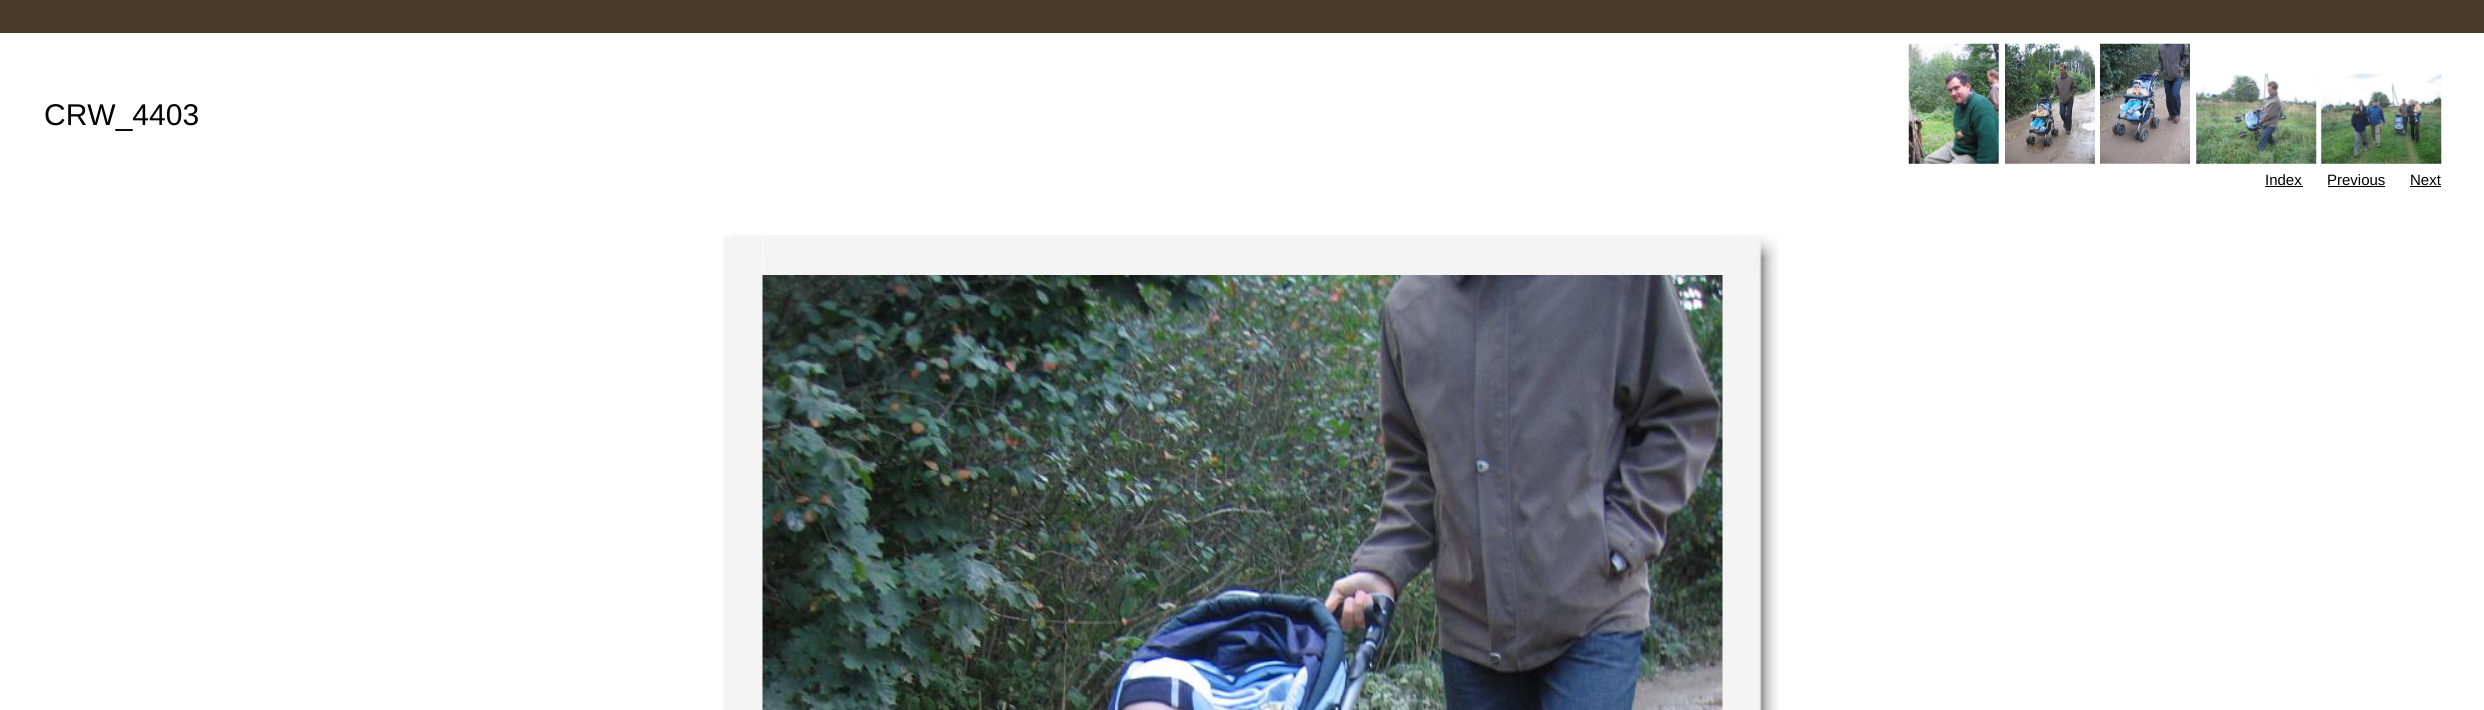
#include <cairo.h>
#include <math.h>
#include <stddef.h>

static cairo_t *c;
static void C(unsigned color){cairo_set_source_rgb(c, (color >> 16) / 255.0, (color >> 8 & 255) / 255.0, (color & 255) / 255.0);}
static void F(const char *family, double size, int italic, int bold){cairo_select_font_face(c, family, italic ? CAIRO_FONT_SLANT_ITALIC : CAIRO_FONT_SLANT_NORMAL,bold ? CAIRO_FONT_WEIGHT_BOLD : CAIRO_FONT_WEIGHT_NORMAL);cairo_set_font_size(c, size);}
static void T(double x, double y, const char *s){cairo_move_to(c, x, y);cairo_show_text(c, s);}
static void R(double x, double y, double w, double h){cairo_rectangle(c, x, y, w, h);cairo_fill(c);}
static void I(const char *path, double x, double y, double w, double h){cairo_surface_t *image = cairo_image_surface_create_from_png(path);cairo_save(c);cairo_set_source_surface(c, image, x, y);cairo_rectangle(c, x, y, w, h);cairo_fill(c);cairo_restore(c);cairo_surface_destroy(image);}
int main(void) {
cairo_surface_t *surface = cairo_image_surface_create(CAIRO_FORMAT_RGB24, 2484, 710);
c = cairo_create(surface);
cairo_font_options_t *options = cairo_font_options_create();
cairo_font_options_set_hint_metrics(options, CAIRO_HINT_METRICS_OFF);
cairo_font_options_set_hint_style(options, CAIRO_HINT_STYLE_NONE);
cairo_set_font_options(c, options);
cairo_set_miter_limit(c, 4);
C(0xffffff);
cairo_paint(c);
C(0x4a3826);
R(0,0,2484,33);
F("Liberation Sans",30,0,0);
C(0x000000);
T(44,125,"CRW_4403");
I("1.png",1908,43,91,121);
I("2.png",2005,43,90,121);
I("3.png",2100,43,90,121);
I("4.png",2196,73,121,91);
I("5.png",2321,73,121,91);
F("Liberation Sans",15,0,0);
T(2265,185,"Index");
R(2265,186,38,1);
T(2327,185,"Previous");
R(2328,186,57,1);
T(2410,185,"Next");
R(2410,186,31,1);
I("6.png",722,234,41,41);
C(0xf4f4f4);
R(763,235,960,40);
I("7.png",1723,234,56,41);
I("8.png",722,275,41,435);
I("10.png",1722,275,57,435);
I("9.png",762,275,961,435);
cairo_surface_write_to_png(surface, "o.png");
cairo_font_options_destroy(options);
cairo_destroy(c);
cairo_surface_destroy(surface);
return 0;
}
